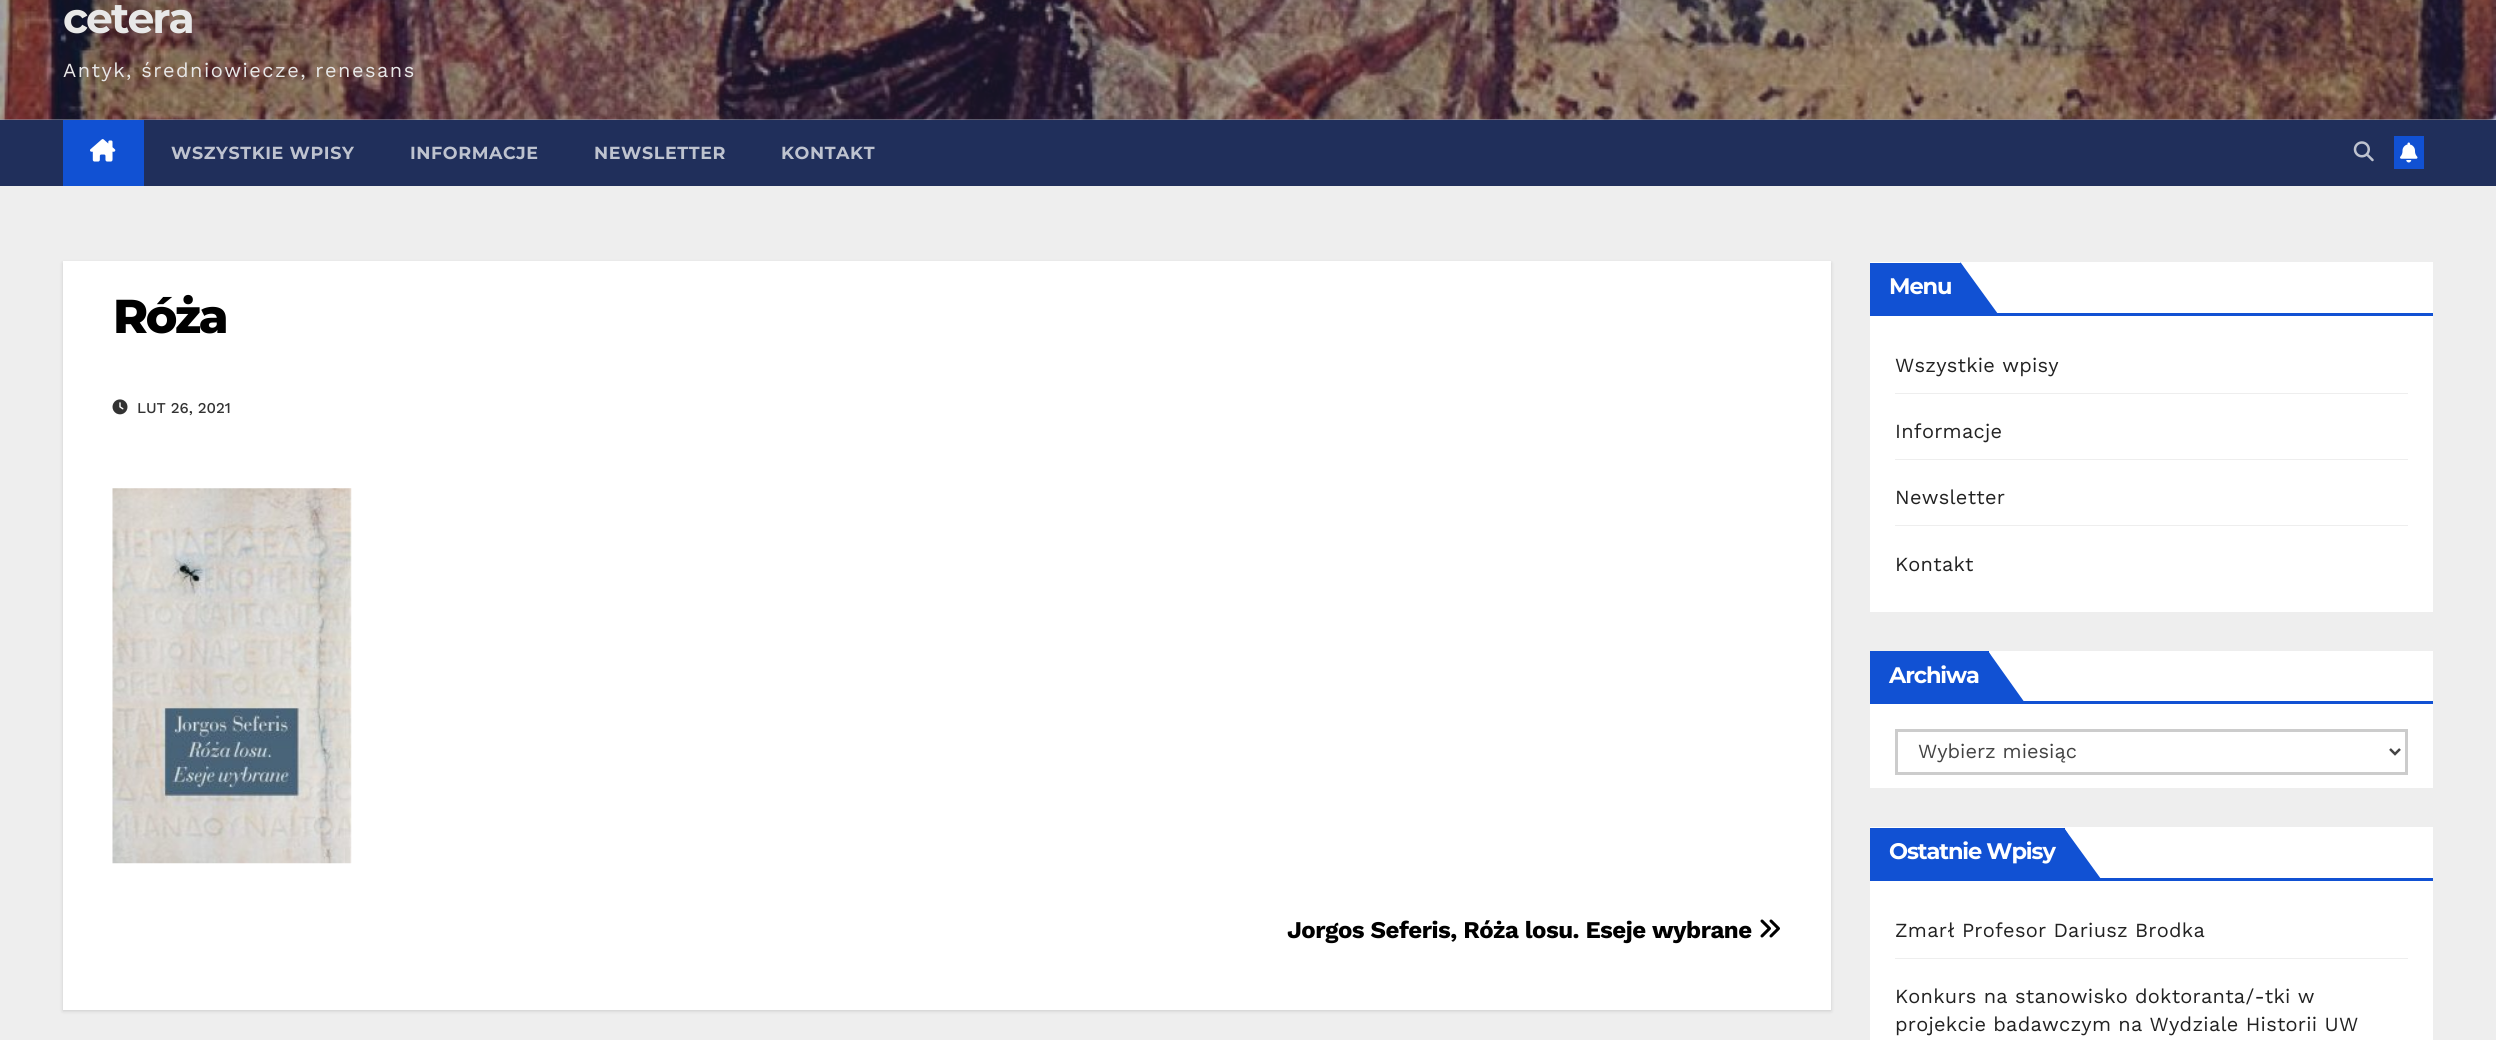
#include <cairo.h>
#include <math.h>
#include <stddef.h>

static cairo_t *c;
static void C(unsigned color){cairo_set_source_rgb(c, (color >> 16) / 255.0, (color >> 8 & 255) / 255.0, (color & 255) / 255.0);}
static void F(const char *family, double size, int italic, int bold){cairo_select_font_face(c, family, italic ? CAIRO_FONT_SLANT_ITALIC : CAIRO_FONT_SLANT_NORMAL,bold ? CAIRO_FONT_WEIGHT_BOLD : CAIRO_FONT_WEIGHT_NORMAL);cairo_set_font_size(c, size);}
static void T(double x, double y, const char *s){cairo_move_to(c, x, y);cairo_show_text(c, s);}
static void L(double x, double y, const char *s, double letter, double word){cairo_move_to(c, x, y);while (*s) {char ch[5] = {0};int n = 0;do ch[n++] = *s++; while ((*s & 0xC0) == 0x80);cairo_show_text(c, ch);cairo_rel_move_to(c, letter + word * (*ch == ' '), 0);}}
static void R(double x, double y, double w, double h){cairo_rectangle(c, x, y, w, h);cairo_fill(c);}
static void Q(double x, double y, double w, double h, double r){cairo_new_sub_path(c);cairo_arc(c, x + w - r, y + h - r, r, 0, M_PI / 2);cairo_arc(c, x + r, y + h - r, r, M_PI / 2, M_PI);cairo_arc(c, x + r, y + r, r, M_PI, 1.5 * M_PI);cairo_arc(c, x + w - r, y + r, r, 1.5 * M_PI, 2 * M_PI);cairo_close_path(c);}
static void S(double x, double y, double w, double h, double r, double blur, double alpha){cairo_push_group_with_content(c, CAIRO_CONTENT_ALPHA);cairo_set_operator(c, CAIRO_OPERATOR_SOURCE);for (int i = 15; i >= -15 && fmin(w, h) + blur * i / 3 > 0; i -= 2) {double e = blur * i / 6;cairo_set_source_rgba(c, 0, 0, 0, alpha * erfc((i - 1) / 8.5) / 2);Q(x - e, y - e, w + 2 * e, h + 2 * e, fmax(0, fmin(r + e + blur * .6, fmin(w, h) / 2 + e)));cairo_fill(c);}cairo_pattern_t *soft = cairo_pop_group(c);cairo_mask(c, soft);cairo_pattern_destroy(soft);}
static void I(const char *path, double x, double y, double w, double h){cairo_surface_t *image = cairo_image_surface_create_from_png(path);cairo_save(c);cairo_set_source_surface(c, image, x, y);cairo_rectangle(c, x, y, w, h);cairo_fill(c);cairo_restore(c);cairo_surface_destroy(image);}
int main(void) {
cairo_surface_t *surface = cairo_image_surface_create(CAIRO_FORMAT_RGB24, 2496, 1040);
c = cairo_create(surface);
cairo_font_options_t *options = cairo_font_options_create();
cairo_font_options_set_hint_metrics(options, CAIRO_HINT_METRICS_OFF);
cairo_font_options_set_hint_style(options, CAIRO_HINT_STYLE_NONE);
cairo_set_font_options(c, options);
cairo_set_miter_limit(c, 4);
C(0xeeeeee);
cairo_paint(c);
C(0x9ca2b3);
R(0,119,2496,1);
I("1.png",0,0,2496,120);
F("Montserrat",42.5,0,1);
C(0xe8e8e8);
L(63,33,"cetera",-2,0);
F("Work Sans",20,0,0);
L(63,77,"Antyk, średniowiecze, renesans",1.5,0);
C(0x202f5b);
R(0,120,2496,66);
C(0x1151d3);
R(63,120,81,66);
I("2.png",90,139,26,23);
F("Montserrat",17.5,0,1);
C(0xbec3cf);
L(171,159,"WSZYSTKIE WPISY",.6,0);
L(410,159,"INFORMACJE",.6,0);
L(594,159,"NEWSLETTER",.6,0);
L(781,159,"KONTAKT",.6,0);
I("3.png",2353,141,21,21);
C(0x1151d3);
R(2394,136,30,33);
I("4.png",2400,142,18,21);
C(0x000000);
S(63,263,1768,748,0,2,.15);
C(0xffffff);
R(63,261,1768,749);
F("Montserrat ExtraBold",47.5,0,0);
C(0x000000);
L(113,333,"Róża",-2.5,0);
I("5.png",112,399,16,16);
F("Work Sans Medium",15,0,0);
C(0x333333);
T(137,413,"LUT 26, 2021");
I("6.png",112,488,240,376);
F("Work Sans",24,0,1);
C(0x000000);
L(1287,938,"Jorgos Seferis, Róża losu. Eseje wybrane",-.5,0);
I("7.png",1760,919,20,19);
C(0xffffff);
R(1870,262,563,350);
C(0x1151d3);
R(1870,313,563,3);
R(1870,263,90,50);
F("Montserrat",22.5,0,1);
C(0xffffff);
L(1889,294,"Menu",-1.1,0);
C(0x1151d3);
cairo_new_path(c);
cairo_move_to(c,1961,263);
cairo_line_to(c,1960,263);
cairo_line_to(c,1960,314);
cairo_line_to(c,1998,314);
cairo_close_path(c);
cairo_fill(c);
cairo_new_path(c);
cairo_move_to(c,1960,262);
cairo_line_to(c,1960,314);
cairo_line_to(c,1961,314);
cairo_line_to(c,1964,311);
cairo_line_to(c,1964,268);
cairo_close_path(c);
cairo_fill(c);
C(0xeeeeee);
R(1895,393,513,1);
F("Work Sans",20,0,0);
C(0x222222);
L(1895,372,"Wszystkie wpisy",.25,0);
C(0xeeeeee);
R(1895,459,513,1);
C(0x222222);
L(1895,438,"Informacje",.25,0);
C(0xeeeeee);
R(1895,525,513,1);
C(0x222222);
L(1895,504,"Newsletter",.25,0);
L(1895,571,"Kontakt",.25,0);
C(0xffffff);
R(1870,651,563,137);
C(0x1151d3);
R(1870,701,563,3);
R(1870,651,119,50);
F("Montserrat",22.5,0,1);
C(0xffffff);
L(1889,683,"Archiwa",-1.1,0);
C(0x1151d3);
cairo_new_path(c);
cairo_move_to(c,1988,651);
cairo_line_to(c,1988,703);
cairo_line_to(c,2025,703);
cairo_close_path(c);
cairo_fill(c);
cairo_new_path(c);
cairo_move_to(c,1988,651);
cairo_line_to(c,1988,703);
cairo_line_to(c,1989,703);
cairo_line_to(c,1991,700);
cairo_line_to(c,1991,656);
cairo_close_path(c);
cairo_fill(c);
cairo_rectangle(c,1896.5,730.5,510,43);
C(0xcccccc);
cairo_set_line_width(c,3);
cairo_stroke(c);
cairo_new_path(c);
cairo_move_to(c,2390,749);
cairo_line_to(c,2395,754);
cairo_line_to(c,2400,749);
C(0x444444);
cairo_set_line_width(c,2.5);
cairo_stroke(c);
F("Work Sans",20,0,0);
T(1918,758,"Wybierz miesiąc");
C(0xffffff);
R(1870,827,563,213);
C(0x1151d3);
R(1870,878,563,3);
R(1870,828,195,50);
F("Montserrat",22.5,0,1);
C(0xffffff);
L(1889,859,"Ostatnie Wpisy",-1.1,0);
C(0x1151d3);
cairo_new_path(c);
cairo_move_to(c,2064,828);
cairo_line_to(c,2064,879);
cairo_line_to(c,2101,879);
cairo_close_path(c);
cairo_fill(c);
cairo_new_path(c);
cairo_move_to(c,2064,828);
cairo_line_to(c,2064,879);
cairo_line_to(c,2065,879);
cairo_line_to(c,2068,876);
cairo_line_to(c,2068,834);
cairo_close_path(c);
cairo_fill(c);
C(0xeeeeee);
R(1895,958,513,1);
F("Work Sans",20,0,0);
C(0x222222);
L(1895,937,"Zmarł Profesor Dariusz Brodka",.25,0);
L(1895,1003,"Konkurs na stanowisko doktoranta/-tki w",.25,0);
L(1895,1031,"projekcie badawczym na Wydziale Historii UW",.25,0);
cairo_surface_write_to_png(surface, "o.png");
cairo_font_options_destroy(options);
cairo_destroy(c);
cairo_surface_destroy(surface);
return 0;
}
